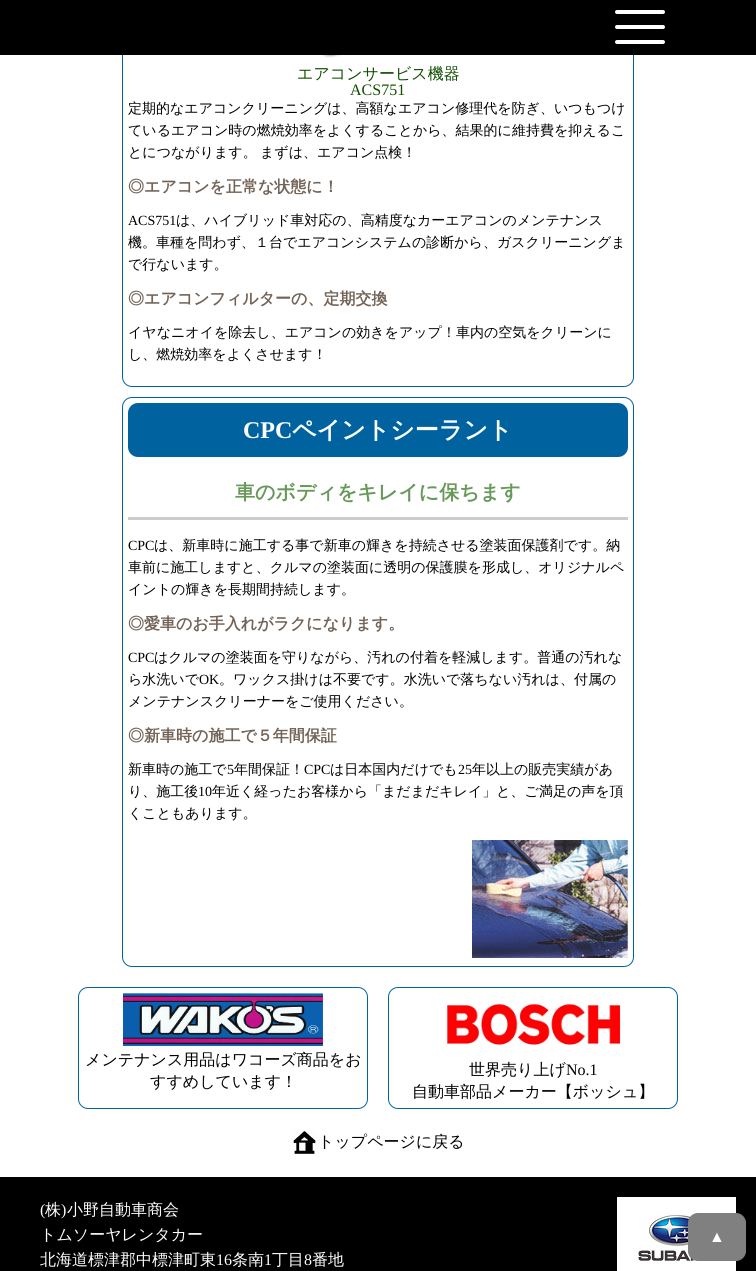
#include <cairo.h>
#include <math.h>
#include <stddef.h>

static cairo_t *c;
static void C(unsigned color){cairo_set_source_rgb(c, (color >> 16) / 255.0, (color >> 8 & 255) / 255.0, (color & 255) / 255.0);}
static void F(const char *family, double size, int italic, int bold){cairo_select_font_face(c, family, italic ? CAIRO_FONT_SLANT_ITALIC : CAIRO_FONT_SLANT_NORMAL,bold ? CAIRO_FONT_WEIGHT_BOLD : CAIRO_FONT_WEIGHT_NORMAL);cairo_set_font_size(c, size);}
static void T(double x, double y, const char *s){cairo_move_to(c, x, y);cairo_show_text(c, s);}
static void R(double x, double y, double w, double h){cairo_rectangle(c, x, y, w, h);cairo_fill(c);}
static void Q(double x, double y, double w, double h, double r){cairo_new_sub_path(c);cairo_arc(c, x + w - r, y + h - r, r, 0, M_PI / 2);cairo_arc(c, x + r, y + h - r, r, M_PI / 2, M_PI);cairo_arc(c, x + r, y + r, r, M_PI, 1.5 * M_PI);cairo_arc(c, x + w - r, y + r, r, 1.5 * M_PI, 2 * M_PI);cairo_close_path(c);}
static void I(const char *path, double x, double y, double w, double h){cairo_surface_t *image = cairo_image_surface_create_from_png(path);cairo_save(c);cairo_set_source_surface(c, image, x, y);cairo_rectangle(c, x, y, w, h);cairo_fill(c);cairo_restore(c);cairo_surface_destroy(image);}
int main(void) {
cairo_surface_t *surface = cairo_image_surface_create(CAIRO_FORMAT_RGB24, 756, 1271);
c = cairo_create(surface);
cairo_font_options_t *options = cairo_font_options_create();
cairo_font_options_set_hint_metrics(options, CAIRO_HINT_METRICS_OFF);
cairo_font_options_set_hint_style(options, CAIRO_HINT_STYLE_NONE);
cairo_set_font_options(c, options);
cairo_set_miter_limit(c, 4);
C(0xffffff);
cairo_paint(c);
Q(122.5,-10.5,511,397,9.5);
C(0x0063a0);
cairo_set_line_width(c,1);
cairo_stroke(c);
C(0x000000);
R(0,0,756,55);
C(0xffffff);
Q(615,10,50,4,2);
cairo_fill(c);
Q(615,25,50,4,2);
cairo_fill(c);
Q(615,40,50,4,2);
cairo_fill(c);
I("1.png",287,55,190,3);
F("WenQuanYi Zen Hei Medium",16,0,0);
C(0x104e00);
T(297,79,"エアコンサービス機器");
F("Liberation Serif",16,0,0);
T(350,95,"ACS751");
F("WenQuanYi Zen Hei Medium",14,0,0);
C(0x000000);
T(128,113,"定期的なエアコンクリーニングは、高額なエアコン修理代を防ぎ、いつもつけ");
T(128,135,"ているエアコン時の燃焼効率をよくすることから、結果的に維持費を抑えるこ");
T(128,157,"とにつながります。");
T(260,157,"まずは、エアコン点検！");
F("WenQuanYi Zen Hei",16,0,1);
C(0x736357);
T(128,192,"◎エアコンを正常な状態に！");
F("Liberation Serif",14,0,0);
C(0x000000);
T(128,225,"ACS751");
F("WenQuanYi Zen Hei Medium",14,0,0);
T(176,225,"は、ハイブリッド車対応の、高精度なカーエアコンのメンテナンス");
T(128,247,"機。車種を問わず、１台でエアコンシステムの診断から、ガスクリーニングま");
T(128,269,"で行ないます。");
F("WenQuanYi Zen Hei",16,0,1);
C(0x736357);
T(128,304,"◎エアコンフィルターの、定期交換");
F("WenQuanYi Zen Hei Medium",14,0,0);
C(0x000000);
T(128,337,"イヤなニオイを除去し、エアコンの効きをアップ！車内の空気をクリーンに");
T(128,359,"し、燃焼効率をよくさせます！");
Q(122.5,397.5,511,569,9.5);
C(0x0063a0);
cairo_stroke(c);
Q(128,403,500,54,10);
cairo_fill(c);
F("Liberation Serif",24,0,1);
C(0xffffff);
T(243,438,"CPC");
F("WenQuanYi Zen Hei",24,0,1);
T(292,438,"ペイントシーラント");
C(0xcccccc);
R(128,517,500,3);
F("WenQuanYi Zen Hei",20,0,1);
C(0x67995a);
T(235,499,"車のボディをキレイに保ちます");
F("Liberation Serif",14,0,0);
C(0x000000);
T(128,550,"CPC");
F("WenQuanYi Zen Hei Medium",14,0,0);
T(154,550,"は、新車時に施工する事で新車の輝きを持続させる塗装面保護剤です。納");
T(128,572,"車前に施工しますと、クルマの塗装面に透明の保護膜を形成し、オリジナルペ");
T(128,594,"イントの輝きを長期間持続します。");
F("WenQuanYi Zen Hei",16,0,1);
C(0x736357);
T(128,629,"◎愛車のお手入れがラクになります。");
F("Liberation Serif",14,0,0);
C(0x000000);
T(128,662,"CPC");
F("WenQuanYi Zen Hei Medium",14,0,0);
T(154,662,"はクルマの塗装面を守りながら、汚れの付着を軽減します。普通の汚れな");
T(128,684,"ら水洗いで");
F("Liberation Serif",14,0,0);
T(199,684,"OK");
F("WenQuanYi Zen Hei Medium",14,0,0);
T(219,684,"。ワックス掛けは不要です。水洗いで落ちない汚れは、付属の");
T(128,706,"メンテナンスクリーナーをご使用ください。");
F("WenQuanYi Zen Hei",16,0,1);
C(0x736357);
T(128,741,"◎新車時の施工で５年間保証");
F("WenQuanYi Zen Hei Medium",14,0,0);
C(0x000000);
T(128,774,"新車時の施工で");
F("Liberation Serif",14,0,0);
T(227,774,"5");
F("WenQuanYi Zen Hei Medium",14,0,0);
T(234,774,"年間保証！");
F("Liberation Serif",14,0,0);
T(304,774,"CPC");
F("WenQuanYi Zen Hei Medium",14,0,0);
T(330,774,"は日本国内だけでも");
F("Liberation Serif",14,0,0);
T(458,774,"25");
F("WenQuanYi Zen Hei Medium",14,0,0);
T(472,774,"年以上の販売実績があ");
T(128,796,"り、施工後");
F("Liberation Serif",14,0,0);
T(198,796,"10");
F("WenQuanYi Zen Hei Medium",14,0,0);
T(212,796,"年近く経ったお客様から「まだまだキレイ」と、ご満足の声を頂");
T(128,818,"くこともあります。");
I("2.png",472,840,156,118);
Q(78.5,987.5,289,121,9.5);
C(0x0063a0);
cairo_stroke(c);
I("3.png",123,993,200,53);
F("WenQuanYi Zen Hei Medium",16,0,0);
C(0x000000);
T(85,1065,"メンテナンス用品はワコーズ商品をお");
T(150,1087,"すすめしています！");
Q(388.5,987.5,289,121,9.5);
C(0x0063a0);
cairo_stroke(c);
I("4.png",447,1003,174,42);
C(0x000000);
T(469,1075,"世界売り上げ");
F("Liberation Serif",16,0,0);
T(566,1075,"No.1");
F("WenQuanYi Zen Hei Medium",16,0,0);
T(412,1097,"自動車部品メーカー【ボッシュ】");
I("5.png",291,1129,27,26);
T(318,1147,"トップページに戻る");
R(0,1177,756,94);
F("Liberation Serif",16,0,0);
C(0xffffff);
T(40,1215,"(");
F("WenQuanYi Zen Hei Medium",16,0,0);
T(45,1215,"株");
F("Liberation Serif",16,0,0);
T(61,1215,")");
F("WenQuanYi Zen Hei Medium",16,0,0);
T(67,1215,"小野自動車商会");
T(40,1240,"トムソーヤレンタカー");
T(40,1265,"北海道標津郡中標津町東");
F("Liberation Serif",16,0,0);
T(216,1265,"16");
F("WenQuanYi Zen Hei Medium",16,0,0);
T(232,1265,"条南");
F("Liberation Serif",16,0,0);
T(264,1265,"1");
F("WenQuanYi Zen Hei Medium",16,0,0);
T(272,1265,"丁目");
F("Liberation Serif",16,0,0);
T(304,1265,"8");
F("WenQuanYi Zen Hei Medium",16,0,0);
T(312,1265,"番地");
I("6.png",617,1197,119,74);
C(0x808080);
Q(688.5,1213.5,57,47,9.5);
cairo_fill_preserve(c);
cairo_stroke(c);
F("Liberation Serif",16,0,0);
C(0xffffff);
T(709,1242,"▲");
cairo_surface_write_to_png(surface, "o.png");
cairo_font_options_destroy(options);
cairo_destroy(c);
cairo_surface_destroy(surface);
return 0;
}
